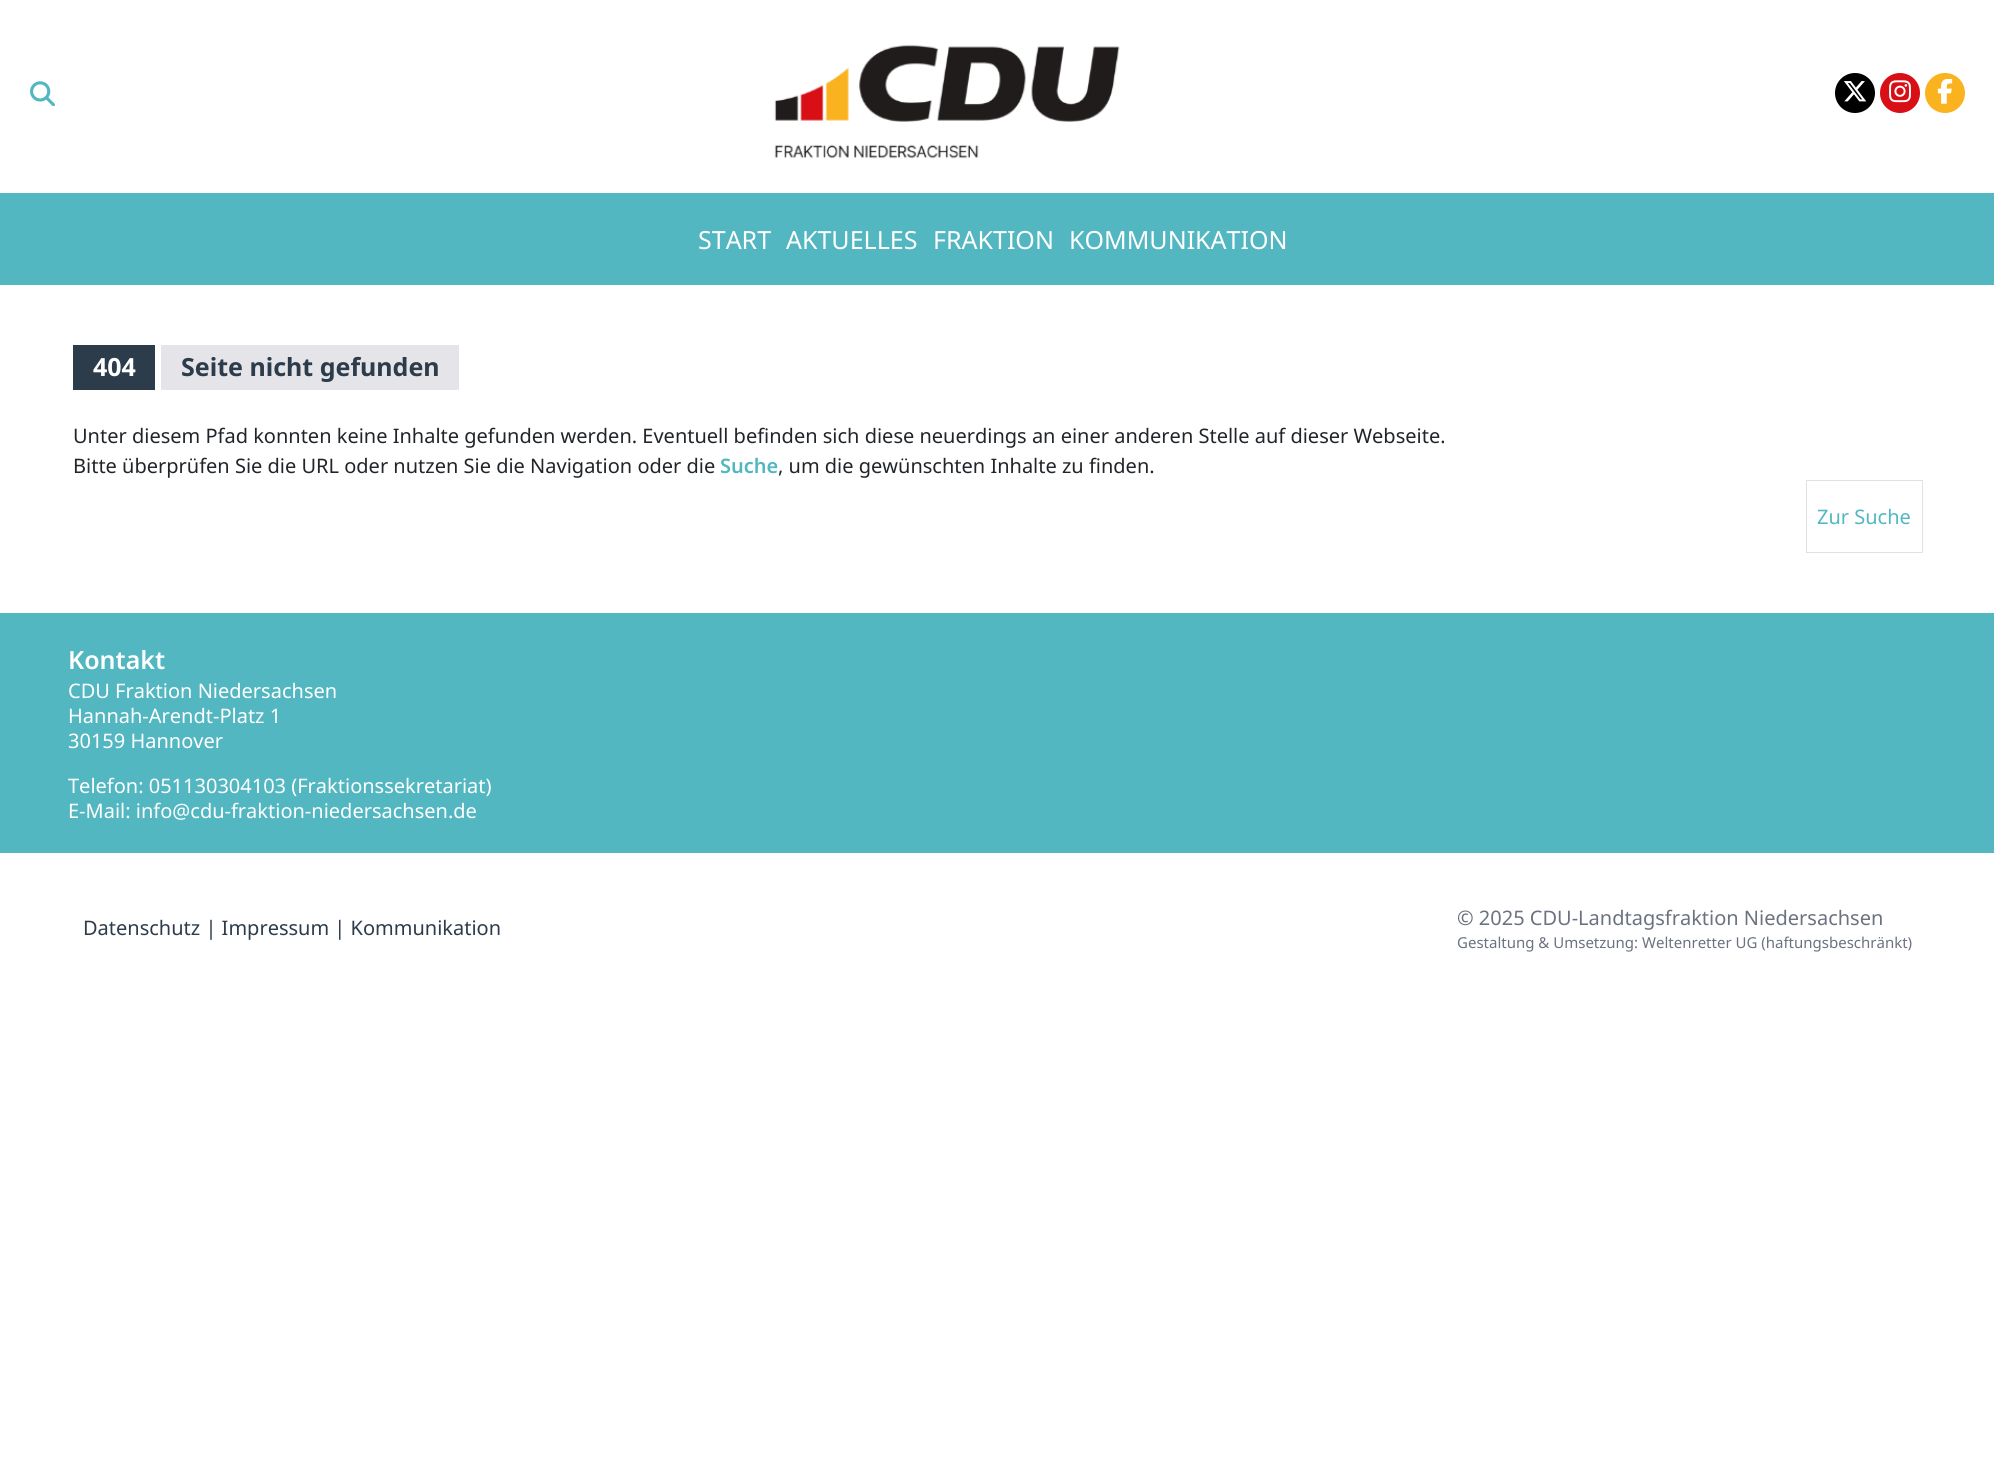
#include <cairo.h>
#include <math.h>
#include <stddef.h>

static cairo_t *c;
static void C(unsigned color){cairo_set_source_rgb(c, (color >> 16) / 255.0, (color >> 8 & 255) / 255.0, (color & 255) / 255.0);}
static void F(const char *family, double size, int italic, int bold){cairo_select_font_face(c, family, italic ? CAIRO_FONT_SLANT_ITALIC : CAIRO_FONT_SLANT_NORMAL,bold ? CAIRO_FONT_WEIGHT_BOLD : CAIRO_FONT_WEIGHT_NORMAL);cairo_set_font_size(c, size);}
static void T(double x, double y, const char *s){cairo_move_to(c, x, y);cairo_show_text(c, s);}
static void R(double x, double y, double w, double h){cairo_rectangle(c, x, y, w, h);cairo_fill(c);}
static void I(const char *path, double x, double y, double w, double h){cairo_surface_t *image = cairo_image_surface_create_from_png(path);cairo_save(c);cairo_set_source_surface(c, image, x, y);cairo_rectangle(c, x, y, w, h);cairo_fill(c);cairo_restore(c);cairo_surface_destroy(image);}
int main(void) {
cairo_surface_t *surface = cairo_image_surface_create(CAIRO_FORMAT_RGB24, 1994, 1465);
c = cairo_create(surface);
cairo_font_options_t *options = cairo_font_options_create();
cairo_font_options_set_hint_metrics(options, CAIRO_HINT_METRICS_OFF);
cairo_font_options_set_hint_style(options, CAIRO_HINT_STYLE_NONE);
cairo_set_font_options(c, options);
cairo_set_miter_limit(c, 4);
C(0xffffff);
cairo_paint(c);
I("1.png",30,81,25,25);
I("2.png",774,44,346,115);
C(0x000000);
cairo_arc(c,1855,93,20,0,2 * M_PI);
cairo_fill(c);
I("3.png",1843,81,24,21);
C(0xd90f16);
cairo_arc(c,1900,93,20,0,2 * M_PI);
cairo_fill(c);
I("4.png",1889,80,22,23);
C(0xfab31e);
cairo_arc(c,1945,93,20,0,2 * M_PI);
cairo_fill(c);
I("5.png",1937,79,16,25);
C(0x52b7c1);
R(0,193,1994,92);
F("Noto Sans",25,0,0);
C(0xffffff);
T(698,249,"START");
T(786,249,"AKTUELLES");
T(933,249,"FRAKTION");
T(1069,249,"KOMMUNIKATION");
C(0x2d3c4b);
R(73,345,82,45);
F("Noto Sans",25,0,1);
C(0xffffff);
T(93,376,"404");
C(0xe5e5e9);
R(161,345,298,45);
C(0x2d3c4b);
T(181,376,"Seite nicht gefunden");
F("Noto Sans",20,0,0);
C(0x212529);
T(73,443,"Unter diesem Pfad konnten keine Inhalte gefunden werden. Eventuell befinden sich diese neuerdings an einer anderen Stelle auf dieser Webseite.");
T(73,473,"Bitte überprüfen Sie die URL oder nutzen Sie die Navigation oder die");
F("Noto Sans SemiBold",20,0,0);
C(0x52b7c1);
T(720,473,"Suche");
F("Noto Sans",20,0,0);
C(0x212529);
T(778,473,", um die gewünschten Inhalte zu finden.");
cairo_rectangle(c,1806.5,480.5,116,72);
C(0xdee2e6);
cairo_set_line_width(c,1);
cairo_stroke(c);
C(0x52b7c1);
T(1817,524,"Zur Suche");
R(0,613,1994,240);
F("Noto Sans SemiBold",25,0,0);
C(0xffffff);
T(68,669,"Kontakt");
F("Noto Sans",20,0,0);
T(68,698,"CDU Fraktion Niedersachsen");
T(68,723,"Hannah-Arendt-Platz 1");
T(68,748,"30159 Hannover");
T(68,793,"Telefon: 051130304103 (Fraktionssekretariat)");
T(68,818,"E-Mail: info@cdu-fraktion-niedersachsen.de");
C(0x2d3c4b);
T(83,935,"Datenschutz | Impressum | Kommunikation");
C(0x6b7280);
T(1457,925,"© 2025 CDU-Landtagsfraktion Niedersachsen");
F("Noto Sans",15,0,0);
T(1457,948,"Gestaltung & Umsetzung: Weltenretter UG (haftungsbeschränkt)");
cairo_surface_write_to_png(surface, "o.png");
cairo_font_options_destroy(options);
cairo_destroy(c);
cairo_surface_destroy(surface);
return 0;
}
